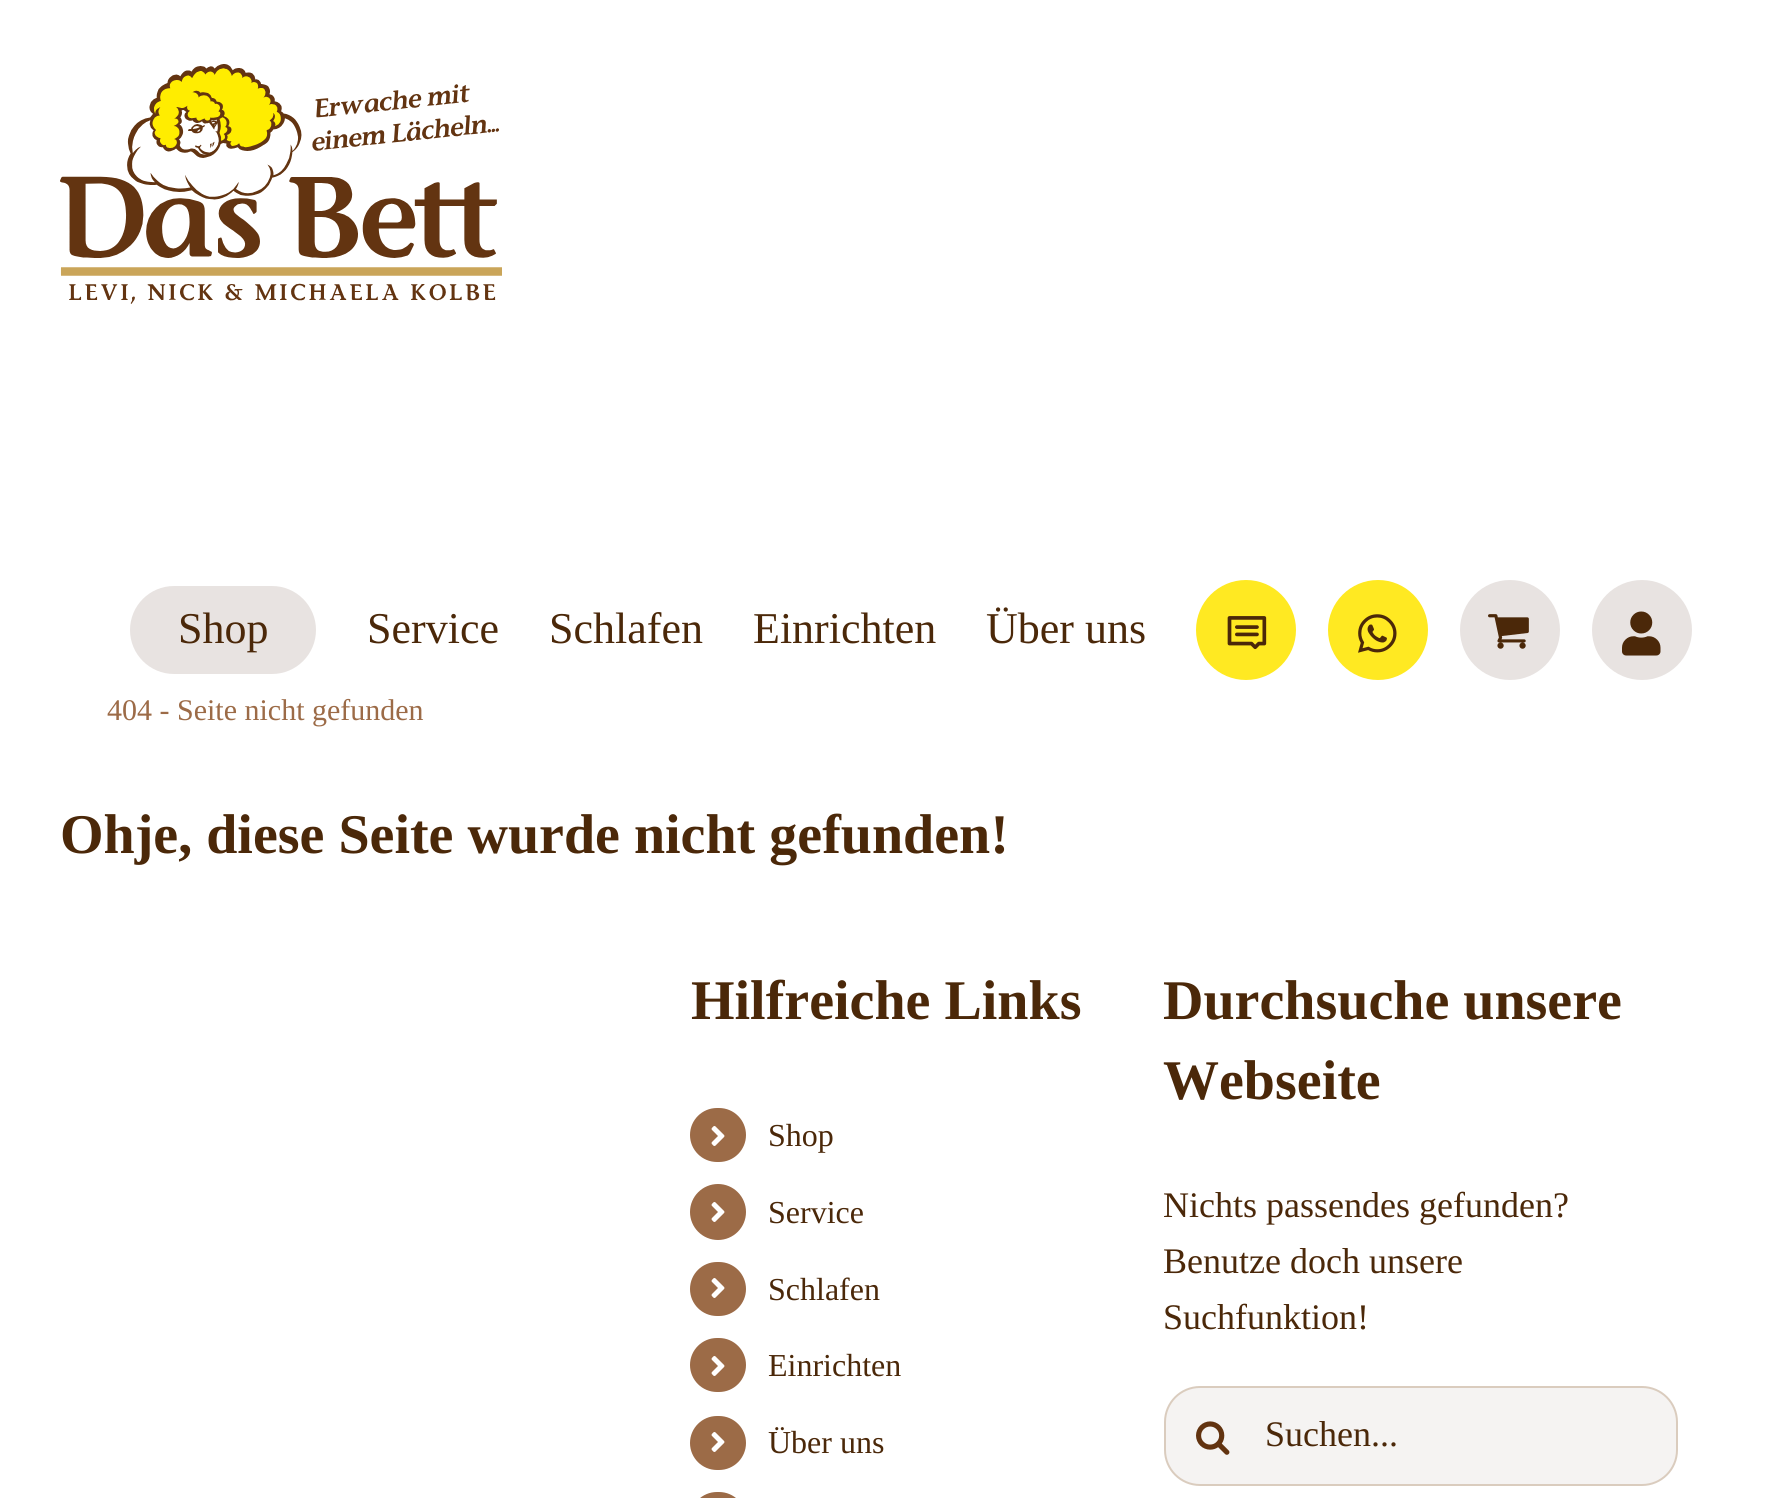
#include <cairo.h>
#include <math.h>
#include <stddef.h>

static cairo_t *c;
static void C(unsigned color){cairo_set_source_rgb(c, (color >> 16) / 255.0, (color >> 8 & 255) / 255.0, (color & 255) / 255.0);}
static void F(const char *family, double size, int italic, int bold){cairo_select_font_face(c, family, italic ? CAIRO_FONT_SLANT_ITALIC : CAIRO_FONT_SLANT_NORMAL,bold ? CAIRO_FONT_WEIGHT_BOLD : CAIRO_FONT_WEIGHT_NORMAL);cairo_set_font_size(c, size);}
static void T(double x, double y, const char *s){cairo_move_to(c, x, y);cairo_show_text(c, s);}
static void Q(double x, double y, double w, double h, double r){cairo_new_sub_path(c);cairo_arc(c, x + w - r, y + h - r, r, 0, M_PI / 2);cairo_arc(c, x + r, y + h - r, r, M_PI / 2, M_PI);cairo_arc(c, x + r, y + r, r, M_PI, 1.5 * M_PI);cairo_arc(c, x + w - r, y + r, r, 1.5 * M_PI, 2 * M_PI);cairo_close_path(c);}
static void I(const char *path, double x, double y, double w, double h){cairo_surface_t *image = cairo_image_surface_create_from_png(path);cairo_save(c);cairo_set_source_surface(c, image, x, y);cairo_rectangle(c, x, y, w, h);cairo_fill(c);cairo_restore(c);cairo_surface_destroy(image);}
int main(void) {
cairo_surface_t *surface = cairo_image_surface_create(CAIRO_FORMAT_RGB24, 1784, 1498);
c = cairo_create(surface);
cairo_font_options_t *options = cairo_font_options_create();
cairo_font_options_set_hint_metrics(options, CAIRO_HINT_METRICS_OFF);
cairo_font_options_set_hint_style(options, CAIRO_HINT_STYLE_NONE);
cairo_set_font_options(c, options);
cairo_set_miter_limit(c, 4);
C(0xffffff);
cairo_paint(c);
I("1.png",60,64,442,240);
C(0xe8e3e1);
Q(130,586,186,88,44);
cairo_fill(c);
F("Liberation Serif",44,0,0);
C(0x4b2809);
T(178,643,"Shop");
T(367,643,"Service");
T(549,643,"Schlafen");
T(753,643,"Einrichten");
T(986,643,"Über uns");
C(0xffe922);
cairo_new_path(c);
cairo_arc(c,1246,630,50,0,2 * M_PI);
cairo_fill(c);
I("2.png",1227,616,40,34);
cairo_arc(c,1378,630,50,0,2 * M_PI);
cairo_fill(c);
I("3.png",1358,614,39,39);
C(0xe8e3e1);
cairo_arc(c,1510,630,50,0,2 * M_PI);
cairo_fill(c);
I("4.png",1488,614,41,35);
cairo_arc(c,1642,630,50,0,2 * M_PI);
cairo_fill(c);
I("5.png",1622,611,39,45);
F("Liberation Serif",30,0,0);
C(0x9c6b47);
T(107,720,"404 - Seite nicht gefunden");
F("Liberation Serif",56,0,1);
C(0x4b2809);
T(60,853,"Ohje, diese Seite wurde nicht gefunden!");
T(691,1019,"Hilfreiche Links");
C(0x9c6b47);
Q(690,1108,56,54,27);
cairo_fill(c);
I("6.png",711,1126,14,20);
F("Liberation Serif",32,0,0);
C(0x4b2809);
T(768,1146,"Shop");
C(0x9c6b47);
cairo_new_path(c);
cairo_arc(c,718,1212,28,0,2 * M_PI);
cairo_fill(c);
I("6.png",711,1202,14,20);
C(0x4b2809);
T(768,1223,"Service");
C(0x9c6b47);
Q(690,1262,56,54,27);
cairo_fill(c);
I("6.png",711,1278,14,20);
C(0x4b2809);
T(768,1300,"Schlafen");
C(0x9c6b47);
Q(690,1338,56,54,27);
cairo_fill(c);
I("6.png",711,1356,14,20);
C(0x4b2809);
T(768,1376,"Einrichten");
C(0x9c6b47);
Q(690,1416,56,54,27);
cairo_fill(c);
I("6.png",711,1432,14,20);
C(0x4b2809);
T(768,1453,"Über uns");
C(0x9c6b47);
Q(690,1492,56,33,27);
cairo_fill(c);
F("Liberation Serif",56,0,1);
C(0x4b2809);
T(1163,1019,"Durchsuche unsere");
T(1163,1099,"Webseite");
F("Liberation Serif",36,0,0);
T(1163,1217,"Nichts passendes gefunden?");
T(1163,1273,"Benutze doch unsere");
T(1163,1329,"Suchfunktion!");
C(0xf5f3f2);
Q(1165,1387,512,98,35);
cairo_fill_preserve(c);
C(0xdaccbe);
cairo_stroke(c);
I("7.png",1196,1421,34,34);
C(0x4b2809);
T(1265,1446,"Suchen...");
cairo_surface_write_to_png(surface, "o.png");
cairo_font_options_destroy(options);
cairo_destroy(c);
cairo_surface_destroy(surface);
return 0;
}
